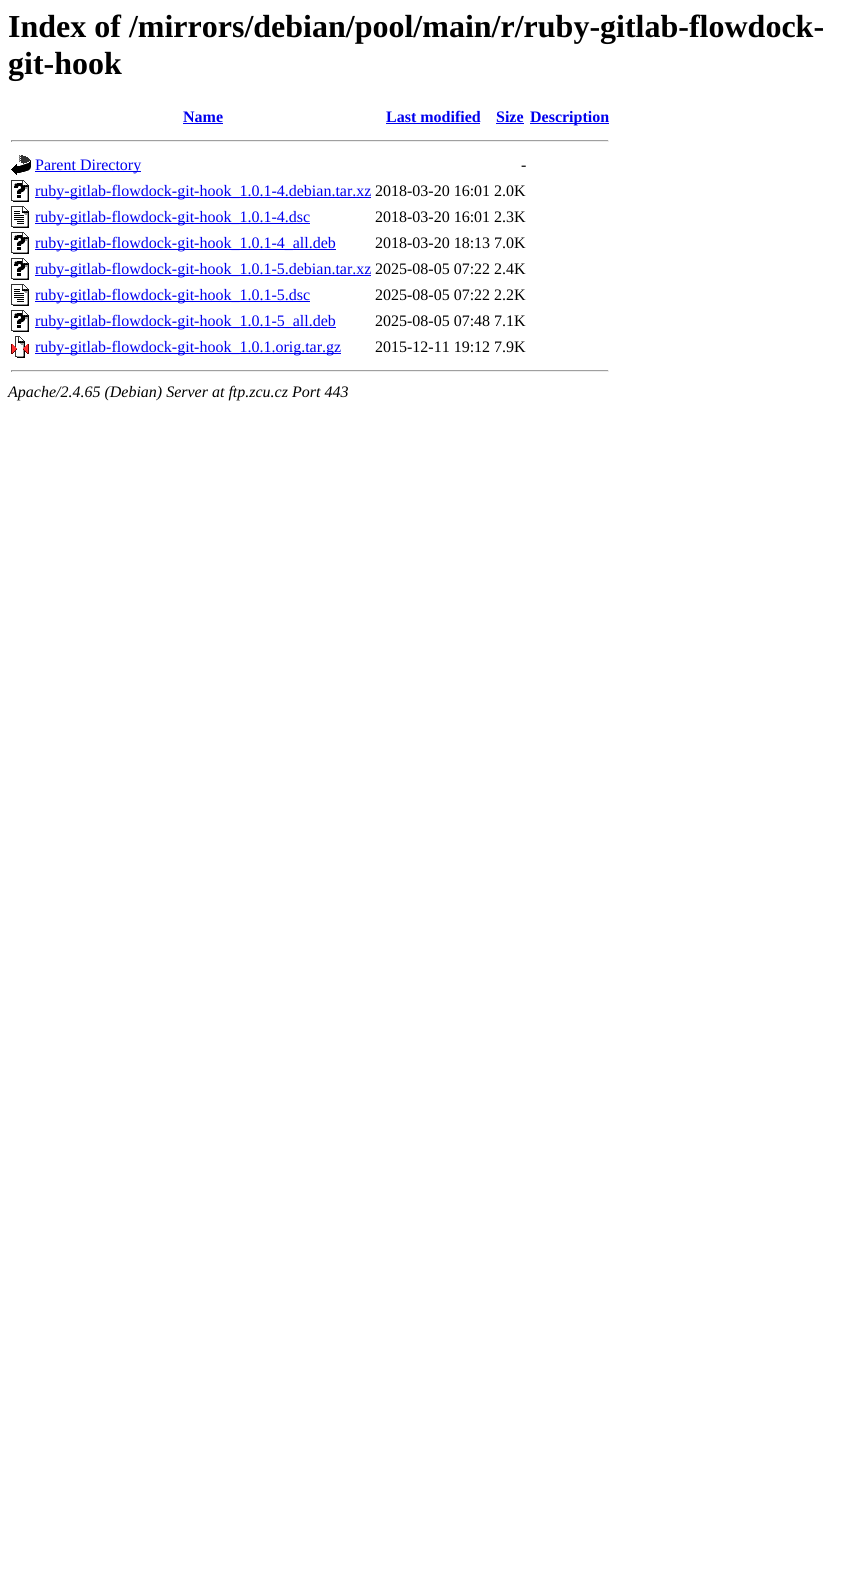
#include <cairo.h>
#include <math.h>
#include <stddef.h>

static cairo_t *c;
static void C(unsigned color){cairo_set_source_rgb(c, (color >> 16) / 255.0, (color >> 8 & 255) / 255.0, (color & 255) / 255.0);}
static void F(const char *family, double size, int italic, int bold){cairo_select_font_face(c, family, italic ? CAIRO_FONT_SLANT_ITALIC : CAIRO_FONT_SLANT_NORMAL,bold ? CAIRO_FONT_WEIGHT_BOLD : CAIRO_FONT_WEIGHT_NORMAL);cairo_set_font_size(c, size);}
static void T(double x, double y, const char *s){cairo_move_to(c, x, y);cairo_show_text(c, s);}
static void R(double x, double y, double w, double h){cairo_rectangle(c, x, y, w, h);cairo_fill(c);}
static void I(const char *path, double x, double y, double w, double h){cairo_surface_t *image = cairo_image_surface_create_from_png(path);cairo_save(c);cairo_set_source_surface(c, image, x, y);cairo_rectangle(c, x, y, w, h);cairo_fill(c);cairo_restore(c);cairo_surface_destroy(image);}
int main(void) {
cairo_surface_t *surface = cairo_image_surface_create(CAIRO_FORMAT_RGB24, 868, 1593);
c = cairo_create(surface);
cairo_font_options_t *options = cairo_font_options_create();
cairo_font_options_set_hint_metrics(options, CAIRO_HINT_METRICS_OFF);
cairo_font_options_set_hint_style(options, CAIRO_HINT_STYLE_NONE);
cairo_set_font_options(c, options);
cairo_set_miter_limit(c, 4);
C(0xffffff);
cairo_paint(c);
F("Liberation Serif",32,0,1);
C(0x000000);
T(8,37,"Index of /mirrors/debian/pool/main/r/ruby-gitlab-flowdock-");
T(8,74,"git-hook");
F("Liberation Serif",16,0,1);
C(0x0000ee);
T(183,122,"Name");
R(183,123,40,1);
T(386,122,"Last modified");
R(386,123,94,1);
T(496,122,"Size");
R(496,123,28,1);
R(530,123,79,1);
T(530,122,"Description");
C(0x9f9f9f);
R(11,140,598,1);
C(0xeeeeee);
R(608,140,1,2);
R(11,141,598,1);
C(0x9f9f9f);
R(11,140,1,2);
I("1.png",11,155,20,20);
C(0x0000ee);
R(35,171,106,1);
F("Liberation Serif",16,0,0);
T(35,170,"Parent Directory");
C(0x000000);
T(521,170,"-");
I("2.png",11,180,18,22);
C(0x0000ee);
R(35,197,336,1);
T(35,196,"ruby-gitlab-flowdock-git-hook_1.0.1-4.debian.tar.xz");
C(0x000000);
T(375,196,"2018-03-20 16:01 2.0K");
I("3.png",11,206,18,22);
C(0x0000ee);
R(35,223,275,1);
T(35,222,"ruby-gitlab-flowdock-git-hook_1.0.1-4.dsc");
C(0x000000);
T(375,222,"2018-03-20 16:01 2.3K");
I("2.png",11,232,18,22);
C(0x0000ee);
R(35,249,301,1);
T(35,248,"ruby-gitlab-flowdock-git-hook_1.0.1-4_all.deb");
C(0x000000);
T(375,248,"2018-03-20 18:13 7.0K");
I("2.png",11,258,18,22);
C(0x0000ee);
R(35,275,336,1);
T(35,274,"ruby-gitlab-flowdock-git-hook_1.0.1-5.debian.tar.xz");
C(0x000000);
T(375,274,"2025-08-05 07:22 2.4K");
I("3.png",11,284,18,22);
C(0x0000ee);
R(35,301,275,1);
T(35,300,"ruby-gitlab-flowdock-git-hook_1.0.1-5.dsc");
C(0x000000);
T(375,300,"2025-08-05 07:22 2.2K");
I("2.png",11,310,18,22);
C(0x0000ee);
R(35,327,301,1);
T(35,326,"ruby-gitlab-flowdock-git-hook_1.0.1-5_all.deb");
C(0x000000);
T(375,326,"2025-08-05 07:48 7.1K");
I("4.png",11,336,18,22);
C(0x0000ee);
R(35,353,306,1);
T(35,352,"ruby-gitlab-flowdock-git-hook_1.0.1.orig.tar.gz");
C(0x000000);
T(375,352,"2015-12-11 19:12 7.9K");
C(0x9f9f9f);
R(11,370,598,1);
C(0xeeeeee);
R(608,370,1,2);
R(11,371,598,1);
C(0x9f9f9f);
R(11,370,1,2);
F("Liberation Serif",16,1,0);
C(0x000000);
T(8,397,"Apache/2.4.65 (Debian) Server at ftp.zcu.cz Port 443");
cairo_surface_write_to_png(surface, "o.png");
cairo_font_options_destroy(options);
cairo_destroy(c);
cairo_surface_destroy(surface);
return 0;
}
